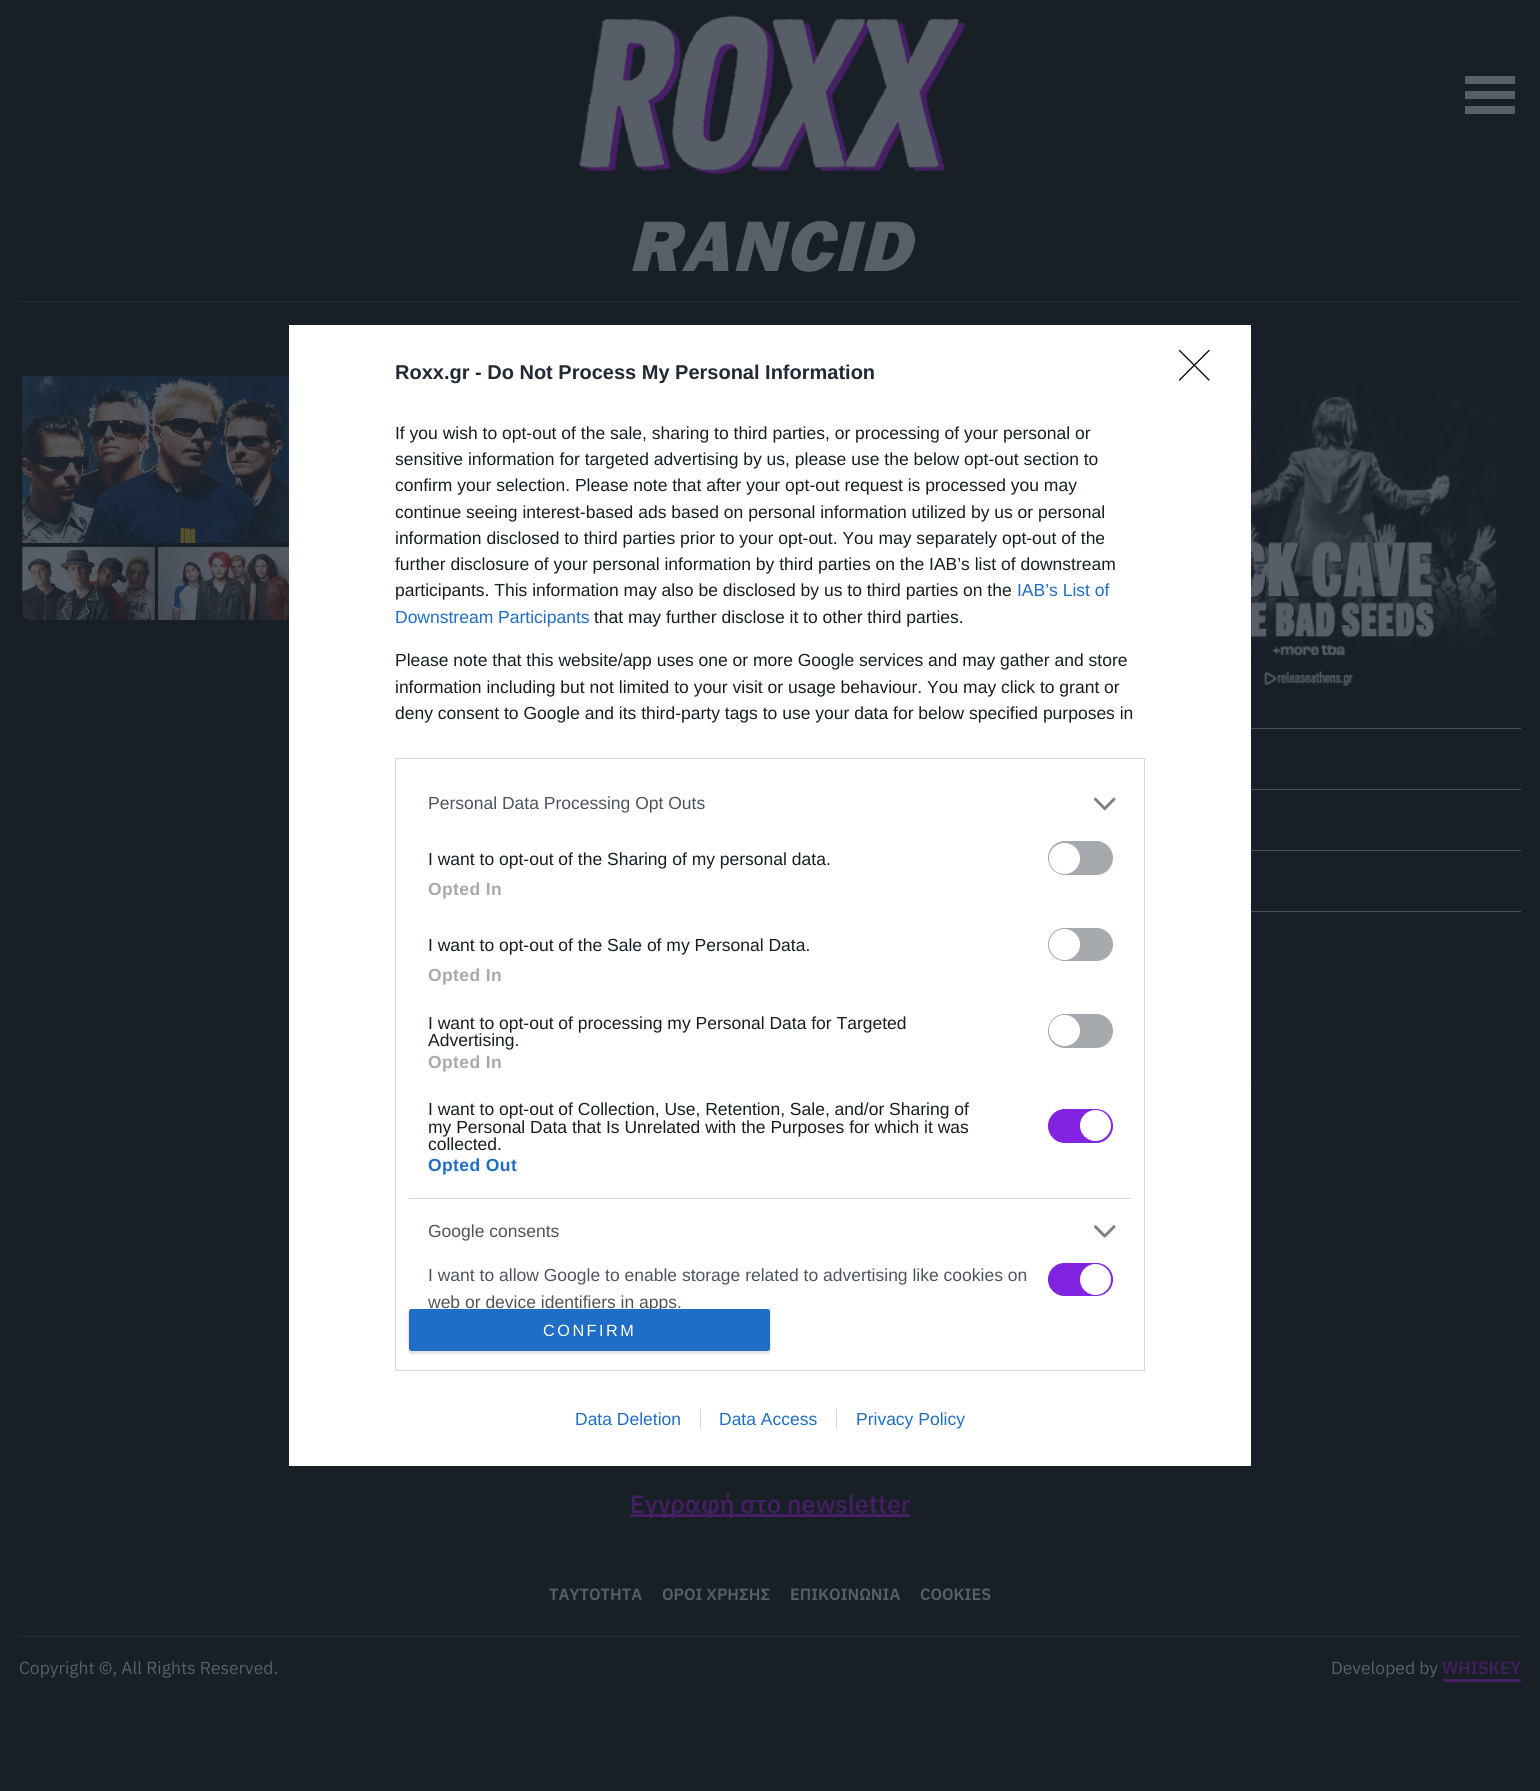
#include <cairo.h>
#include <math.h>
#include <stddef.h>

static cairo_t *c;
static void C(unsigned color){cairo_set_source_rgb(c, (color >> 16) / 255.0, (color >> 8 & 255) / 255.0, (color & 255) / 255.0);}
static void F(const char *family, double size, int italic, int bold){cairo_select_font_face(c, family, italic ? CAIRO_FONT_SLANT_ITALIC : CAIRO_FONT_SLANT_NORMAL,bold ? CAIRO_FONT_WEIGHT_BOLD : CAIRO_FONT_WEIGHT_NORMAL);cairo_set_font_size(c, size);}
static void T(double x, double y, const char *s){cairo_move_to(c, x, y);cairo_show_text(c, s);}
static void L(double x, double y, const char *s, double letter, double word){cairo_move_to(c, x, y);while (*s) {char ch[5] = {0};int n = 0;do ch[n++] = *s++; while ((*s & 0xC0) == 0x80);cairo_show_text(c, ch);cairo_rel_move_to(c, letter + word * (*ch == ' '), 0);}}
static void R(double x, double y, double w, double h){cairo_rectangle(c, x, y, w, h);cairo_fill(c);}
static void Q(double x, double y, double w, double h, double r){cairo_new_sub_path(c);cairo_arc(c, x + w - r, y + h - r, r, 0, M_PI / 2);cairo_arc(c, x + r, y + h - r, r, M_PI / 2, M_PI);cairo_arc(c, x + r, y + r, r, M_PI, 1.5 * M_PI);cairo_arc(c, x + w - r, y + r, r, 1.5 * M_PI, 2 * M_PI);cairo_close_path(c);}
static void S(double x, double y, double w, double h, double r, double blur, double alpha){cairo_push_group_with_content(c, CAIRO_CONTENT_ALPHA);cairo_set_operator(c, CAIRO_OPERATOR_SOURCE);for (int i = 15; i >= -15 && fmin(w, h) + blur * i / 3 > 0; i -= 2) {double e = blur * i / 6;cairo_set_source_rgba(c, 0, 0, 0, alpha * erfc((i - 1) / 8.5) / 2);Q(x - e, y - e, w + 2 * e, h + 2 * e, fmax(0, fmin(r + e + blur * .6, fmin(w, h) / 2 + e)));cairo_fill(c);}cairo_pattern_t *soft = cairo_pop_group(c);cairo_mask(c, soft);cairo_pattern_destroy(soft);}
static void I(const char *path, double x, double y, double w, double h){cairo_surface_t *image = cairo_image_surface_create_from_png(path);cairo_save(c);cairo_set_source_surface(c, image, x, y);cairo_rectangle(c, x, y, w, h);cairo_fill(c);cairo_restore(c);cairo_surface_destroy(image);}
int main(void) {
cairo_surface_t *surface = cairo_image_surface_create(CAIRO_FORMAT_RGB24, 1540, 1791);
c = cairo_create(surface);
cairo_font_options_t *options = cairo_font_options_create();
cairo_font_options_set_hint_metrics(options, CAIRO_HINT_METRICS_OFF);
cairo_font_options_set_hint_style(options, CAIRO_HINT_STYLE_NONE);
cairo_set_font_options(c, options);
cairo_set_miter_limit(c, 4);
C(0x191f27);
cairo_paint(c);
I("1.png",579,15,387,160);
C(0x595f67);
R(1465,76,50,8);
R(1465,91,50,8);
R(1465,106,50,8);
C(0x262c34);
R(19,301,1502,1);
F("Franklin Gothic Black",74,1,0);
C(0x595f67);
L(628,271,"RANCID",2.5,0);
I("2.png",19,373,270,247);
C(0x4c525a);
R(1251,728,270,1);
I("3.png",1251,382,246,305);
R(1251,789,270,1);
R(1251,850,270,1);
R(1251,911,270,1);
C(0x1f252e);
R(0,1081,1540,1);
C(0x471f64);
R(630,1514,280,3);
F("IBM Plex Sans Medium",25,0,0);
T(630,1513,"Εγγραφή στο newsletter");
C(0x262c34);
R(19,1636,1502,1);
F("IBM Plex Sans SemiBold",16.25,0,0);
C(0x595f67);
T(549,1600,"ΤΑΥΤΟΤΗΤΑ");
T(662,1600,"ΟΡΟΙ ΧΡΗΣΗΣ");
T(790,1600,"ΕΠΙΚΟΙΝΩΝΙΑ");
T(920,1600,"COOKIES");
F("IBM Plex Sans",17.5,0,0);
T(19,1674,"Copyright ©, All Rights Reserved.");
T(1331,1674,"Developed by");
F("IBM Plex Sans Medium",17.5,0,0);
C(0x471f64);
T(1442,1674,"WHISKEY");
R(1443,1679,78,3);
C(0xffffff);
R(289,325,962,1141);
F("Liberation Sans",20,0,1);
C(0x212934);
T(395,379,"Roxx.gr - Do Not Process My Personal Information");
F("Liberation Sans",17.5,0,0);
C(0x141e23);
T(395,439,"If you wish to opt-out of the sale, sharing to third parties, or processing of your personal or");
T(395,465,"sensitive information for targeted advertising by us, please use the below opt-out section to");
T(395,491,"confirm your selection. Please note that after your opt-out request is processed you may");
T(395,518,"continue seeing interest-based ads based on personal information utilized by us or personal");
T(395,544,"information disclosed to third parties prior to your opt-out. You may separately opt-out of the");
T(395,570,"further disclosure of your personal information by third parties on the IAB’s list of downstream");
T(395,596,"participants. This information may also be disclosed by us to third parties on the");
C(0x206dc5);
T(1017,596,"IAB’s List of");
T(395,623,"Downstream Participants");
C(0x141e23);
T(594,623,"that may further disclose it to other third parties.");
T(395,666,"Please note that this website/app uses one or more Google services and may gather and store");
T(395,693,"information including but not limited to your visit or usage behaviour. You may click to grant or");
T(395,719,"deny consent to Google and its third-party tags to use your data for below specified purposes in");
cairo_rectangle(c,395.5,758.5,749,612);
C(0xd8d8d8);
cairo_set_line_width(c,1);
cairo_stroke(c);
R(409,1198,722,1);
C(0x4d545d);
T(428,809,"Personal Data Processing Opt Outs");
I("4.png",1093,797,23,14);
C(0x141e23);
T(428,865,"I want to opt-out of the Sharing of my personal data.");
C(0xa6a9ae);
Q(1048.5,841.5,64,33,16.5);
cairo_fill_preserve(c);
cairo_stroke(c);
C(0xffffff);
cairo_arc(c,1064.5,858.5,15.5,0,2 * M_PI);
cairo_fill(c);
F("Liberation Sans",17.5,0,1);
C(0xa6a9ae);
L(428,895,"Opted In",.4,0);
F("Liberation Sans",17.5,0,0);
C(0x141e23);
T(428,951,"I want to opt-out of the Sale of my Personal Data.");
C(0xa6a9ae);
Q(1048.5,928.5,64,32,16);
cairo_fill_preserve(c);
cairo_stroke(c);
C(0xffffff);
cairo_arc(c,1064.5,944.5,15.5,0,2 * M_PI);
cairo_fill(c);
F("Liberation Sans",17.5,0,1);
C(0xa6a9ae);
L(428,981,"Opted In",.4,0);
F("Liberation Sans",17.5,0,0);
C(0x141e23);
T(428,1029,"I want to opt-out of processing my Personal Data for Targeted");
T(428,1046,"Advertising.");
C(0xa6a9ae);
Q(1048.5,1014.5,64,33,16.5);
cairo_fill_preserve(c);
cairo_stroke(c);
C(0xffffff);
cairo_arc(c,1064.5,1030.5,15.5,0,2 * M_PI);
cairo_fill(c);
F("Liberation Sans",17.5,0,1);
C(0xa6a9ae);
L(428,1068,"Opted In",.4,0);
F("Liberation Sans",17.5,0,0);
C(0x141e23);
T(428,1115,"I want to opt-out of Collection, Use, Retention, Sale, and/or Sharing of");
T(428,1133,"my Personal Data that Is Unrelated with the Purposes for which it was");
T(428,1150,"collected.");
C(0x8223e2);
Q(1048.5,1109.5,64,33,16.5);
cairo_fill_preserve(c);
cairo_stroke(c);
C(0xffffff);
cairo_arc(c,1095.5,1125.5,15.5,0,2 * M_PI);
cairo_fill(c);
F("Liberation Sans",17.5,0,1);
C(0x206dc5);
L(428,1171,"Opted Out",.4,0);
F("Liberation Sans",17.5,0,0);
C(0x4d545d);
T(428,1237,"Google consents");
I("5.png",1093,1225,23,13);
T(428,1281,"I want to allow Google to enable storage related to advertising like cookies on");
T(428,1308,"web or device identifiers in apps.");
C(0x8223e2);
Q(1048.5,1263.5,64,32,16);
cairo_fill_preserve(c);
cairo_stroke(c);
C(0xffffff);
cairo_arc(c,1095.5,1279.5,15.5,0,2 * M_PI);
cairo_fill(c);
C(0x000000);
S(408,1309,363,45,4,.5,.1);
C(0x206dc5);
Q(409,1309,361,42,2.5);
cairo_fill(c);
F("Liberation Sans",16.25,0,0);
C(0xffffff);
L(543,1336,"CONFIRM",2.5,0);
cairo_new_path(c);
cairo_move_to(c,1179.5,350.5);
cairo_line_to(c,1209,380);
cairo_move_to(c,1209,350.5);
cairo_line_to(c,1179.5,380);
C(0x000000);
cairo_set_line_width(c,1.3);
cairo_set_line_cap(c,CAIRO_LINE_CAP_ROUND);
cairo_set_line_join(c,CAIRO_LINE_JOIN_ROUND);
cairo_stroke(c);
F("Liberation Sans",17.5,0,0);
C(0x206dc5);
T(575,1425,"Data Deletion");
T(719,1425,"Data Access");
C(0xd8d8d8);
R(700,1409,1,20);
C(0x206dc5);
T(856,1425,"Privacy Policy");
C(0xd8d8d8);
R(836,1409,1,20);
cairo_surface_write_to_png(surface, "o.png");
cairo_font_options_destroy(options);
cairo_destroy(c);
cairo_surface_destroy(surface);
return 0;
}
